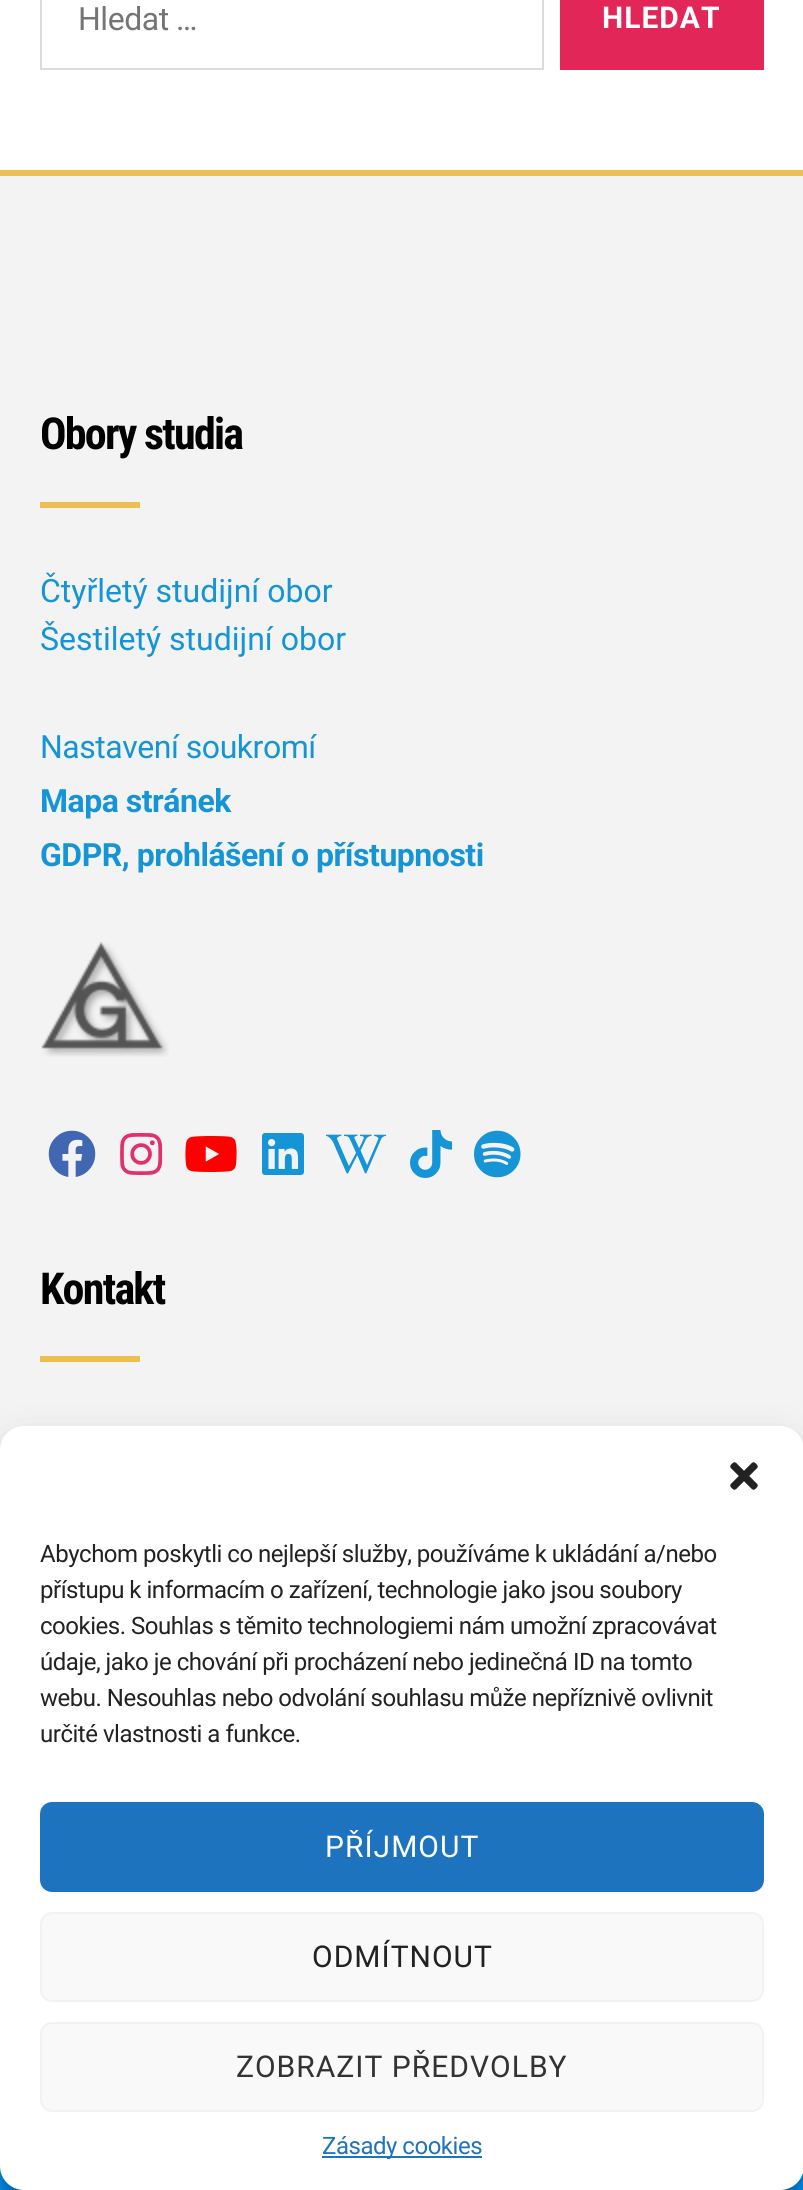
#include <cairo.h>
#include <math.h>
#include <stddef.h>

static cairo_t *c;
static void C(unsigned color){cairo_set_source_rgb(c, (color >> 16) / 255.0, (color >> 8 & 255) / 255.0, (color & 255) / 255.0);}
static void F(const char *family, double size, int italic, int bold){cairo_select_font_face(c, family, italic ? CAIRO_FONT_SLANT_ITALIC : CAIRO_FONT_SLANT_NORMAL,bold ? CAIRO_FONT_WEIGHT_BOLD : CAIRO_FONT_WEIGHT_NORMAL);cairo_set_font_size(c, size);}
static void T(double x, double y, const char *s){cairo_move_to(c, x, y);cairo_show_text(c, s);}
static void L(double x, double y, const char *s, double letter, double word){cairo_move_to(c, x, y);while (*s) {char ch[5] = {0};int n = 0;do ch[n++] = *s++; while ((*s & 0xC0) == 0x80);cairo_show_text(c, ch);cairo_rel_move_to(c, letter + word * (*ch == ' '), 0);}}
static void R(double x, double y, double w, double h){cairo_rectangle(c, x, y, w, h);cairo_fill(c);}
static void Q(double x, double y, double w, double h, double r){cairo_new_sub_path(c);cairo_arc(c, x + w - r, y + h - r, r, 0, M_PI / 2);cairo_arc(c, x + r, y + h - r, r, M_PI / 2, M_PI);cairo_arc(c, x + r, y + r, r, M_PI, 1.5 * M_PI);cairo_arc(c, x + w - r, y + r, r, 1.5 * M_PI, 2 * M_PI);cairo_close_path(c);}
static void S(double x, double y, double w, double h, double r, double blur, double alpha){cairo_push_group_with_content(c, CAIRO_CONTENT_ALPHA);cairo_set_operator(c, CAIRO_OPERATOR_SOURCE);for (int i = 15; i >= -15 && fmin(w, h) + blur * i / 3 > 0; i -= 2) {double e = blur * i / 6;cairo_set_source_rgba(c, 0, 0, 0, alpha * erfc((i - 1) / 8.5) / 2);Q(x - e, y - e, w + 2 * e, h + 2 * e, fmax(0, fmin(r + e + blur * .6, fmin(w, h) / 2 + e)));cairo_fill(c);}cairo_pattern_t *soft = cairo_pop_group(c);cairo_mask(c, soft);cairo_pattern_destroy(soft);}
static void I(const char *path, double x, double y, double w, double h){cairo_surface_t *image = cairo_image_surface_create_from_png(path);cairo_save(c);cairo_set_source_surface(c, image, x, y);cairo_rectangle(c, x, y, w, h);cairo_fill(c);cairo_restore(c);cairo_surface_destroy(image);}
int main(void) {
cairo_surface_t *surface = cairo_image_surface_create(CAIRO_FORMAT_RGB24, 803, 2190);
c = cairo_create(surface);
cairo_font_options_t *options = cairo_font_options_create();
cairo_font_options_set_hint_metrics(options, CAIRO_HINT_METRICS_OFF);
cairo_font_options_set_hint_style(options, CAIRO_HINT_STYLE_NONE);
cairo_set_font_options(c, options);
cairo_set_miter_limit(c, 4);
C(0xffffff);
cairo_paint(c);
cairo_rectangle(c,41,-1,502,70);
C(0xdbdbdb);
cairo_stroke(c);
F("Roboto",32,0,0);
C(0x757575);
L(78,30,"Hledat …",-.48,0);
C(0xe22658);
R(560,0,204,70);
F("Roboto",30,0,1);
C(0xffffff);
L(602,28,"HLEDAT",1,0);
C(0xf3f3f3);
R(0,176,803,1274);
C(0xedbf50);
R(0,170,803,6);
F("Roboto Condensed",44,0,1);
C(0x000000);
L(40,449,"Obory studia",-1.75,0);
C(0xedbf50);
R(40,502,100,6);
F("Roboto",32,0,0);
C(0x1594d6);
T(40,602,"Čtyřletý studijní obor");
T(40,650,"Šestiletý studijní obor");
L(40,758,"Nastavení soukromí",-.48,0);
F("Roboto",32,0,1);
L(40,812,"Mapa stránek",-.48,0);
L(40,866,"GDPR, prohlášení o přístupnosti",-.48,0);
I("1.png",41,941,128,116);
I("2.png",48,1130,48,47);
I("3.png",120,1133,43,42);
I("4.png",185,1136,52,36);
I("5.png",262,1133,42,42);
I("6.png",326,1134,61,40);
I("7.png",410,1130,42,48);
I("8.png",474,1130,47,48);
F("Roboto Condensed",44,0,1);
C(0x000000);
L(40,1304,"Kontakt",-1.75,0);
C(0xedbf50);
R(40,1356,100,6);
C(0x009aff);
R(0,2166,803,24);
C(0x000000);
S(0,1438,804,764,24,6,.23);
S(0,1446,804,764,24,20,.19);
C(0xffffff);
Q(0,1426,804,764,24);
cairo_fill(c);
I("9.png",730,1462,28,28);
F("Roboto",24,0,0);
C(0x222222);
L(40,1562,"Abychom poskytli co nejlepší služby, používáme k ukládání a/nebo",-.48,0);
L(40,1598,"přístupu k informacím o zařízení, technologie jako jsou soubory",-.48,0);
L(40,1634,"cookies. Souhlas s těmito technologiemi nám umožní zpracovávat",-.48,0);
L(40,1670,"údaje, jako je chování při procházení nebo jedinečná ID na tomto",-.48,0);
L(40,1706,"webu. Nesouhlas nebo odvolání souhlasu může nepříznivě ovlivnit",-.48,0);
L(40,1742,"určité vlastnosti a funkce.",-.48,0);
C(0x1e73be);
Q(41,1803,722,88,11);
cairo_fill_preserve(c);
cairo_stroke(c);
F("Roboto",30,0,0);
C(0xffffff);
L(325,1857,"PŘÍJMOUT",1,0);
C(0xf9f9f9);
Q(41,1913,722,88,11);
cairo_fill_preserve(c);
C(0xf2f2f2);
cairo_stroke(c);
C(0x222222);
L(312,1967,"ODMÍTNOUT",1,0);
C(0xf9f9f9);
Q(41,2023,722,88,11);
cairo_fill_preserve(c);
C(0xf2f2f2);
cairo_stroke(c);
C(0x333333);
L(236,2077,"ZOBRAZIT PŘEDVOLBY",1,0);
C(0x1e73be);
R(322,2156,160,2);
F("Roboto",24,0,0);
L(322,2154,"Zásady cookies",-.48,0);
cairo_surface_write_to_png(surface, "o.png");
cairo_font_options_destroy(options);
cairo_destroy(c);
cairo_surface_destroy(surface);
return 0;
}
